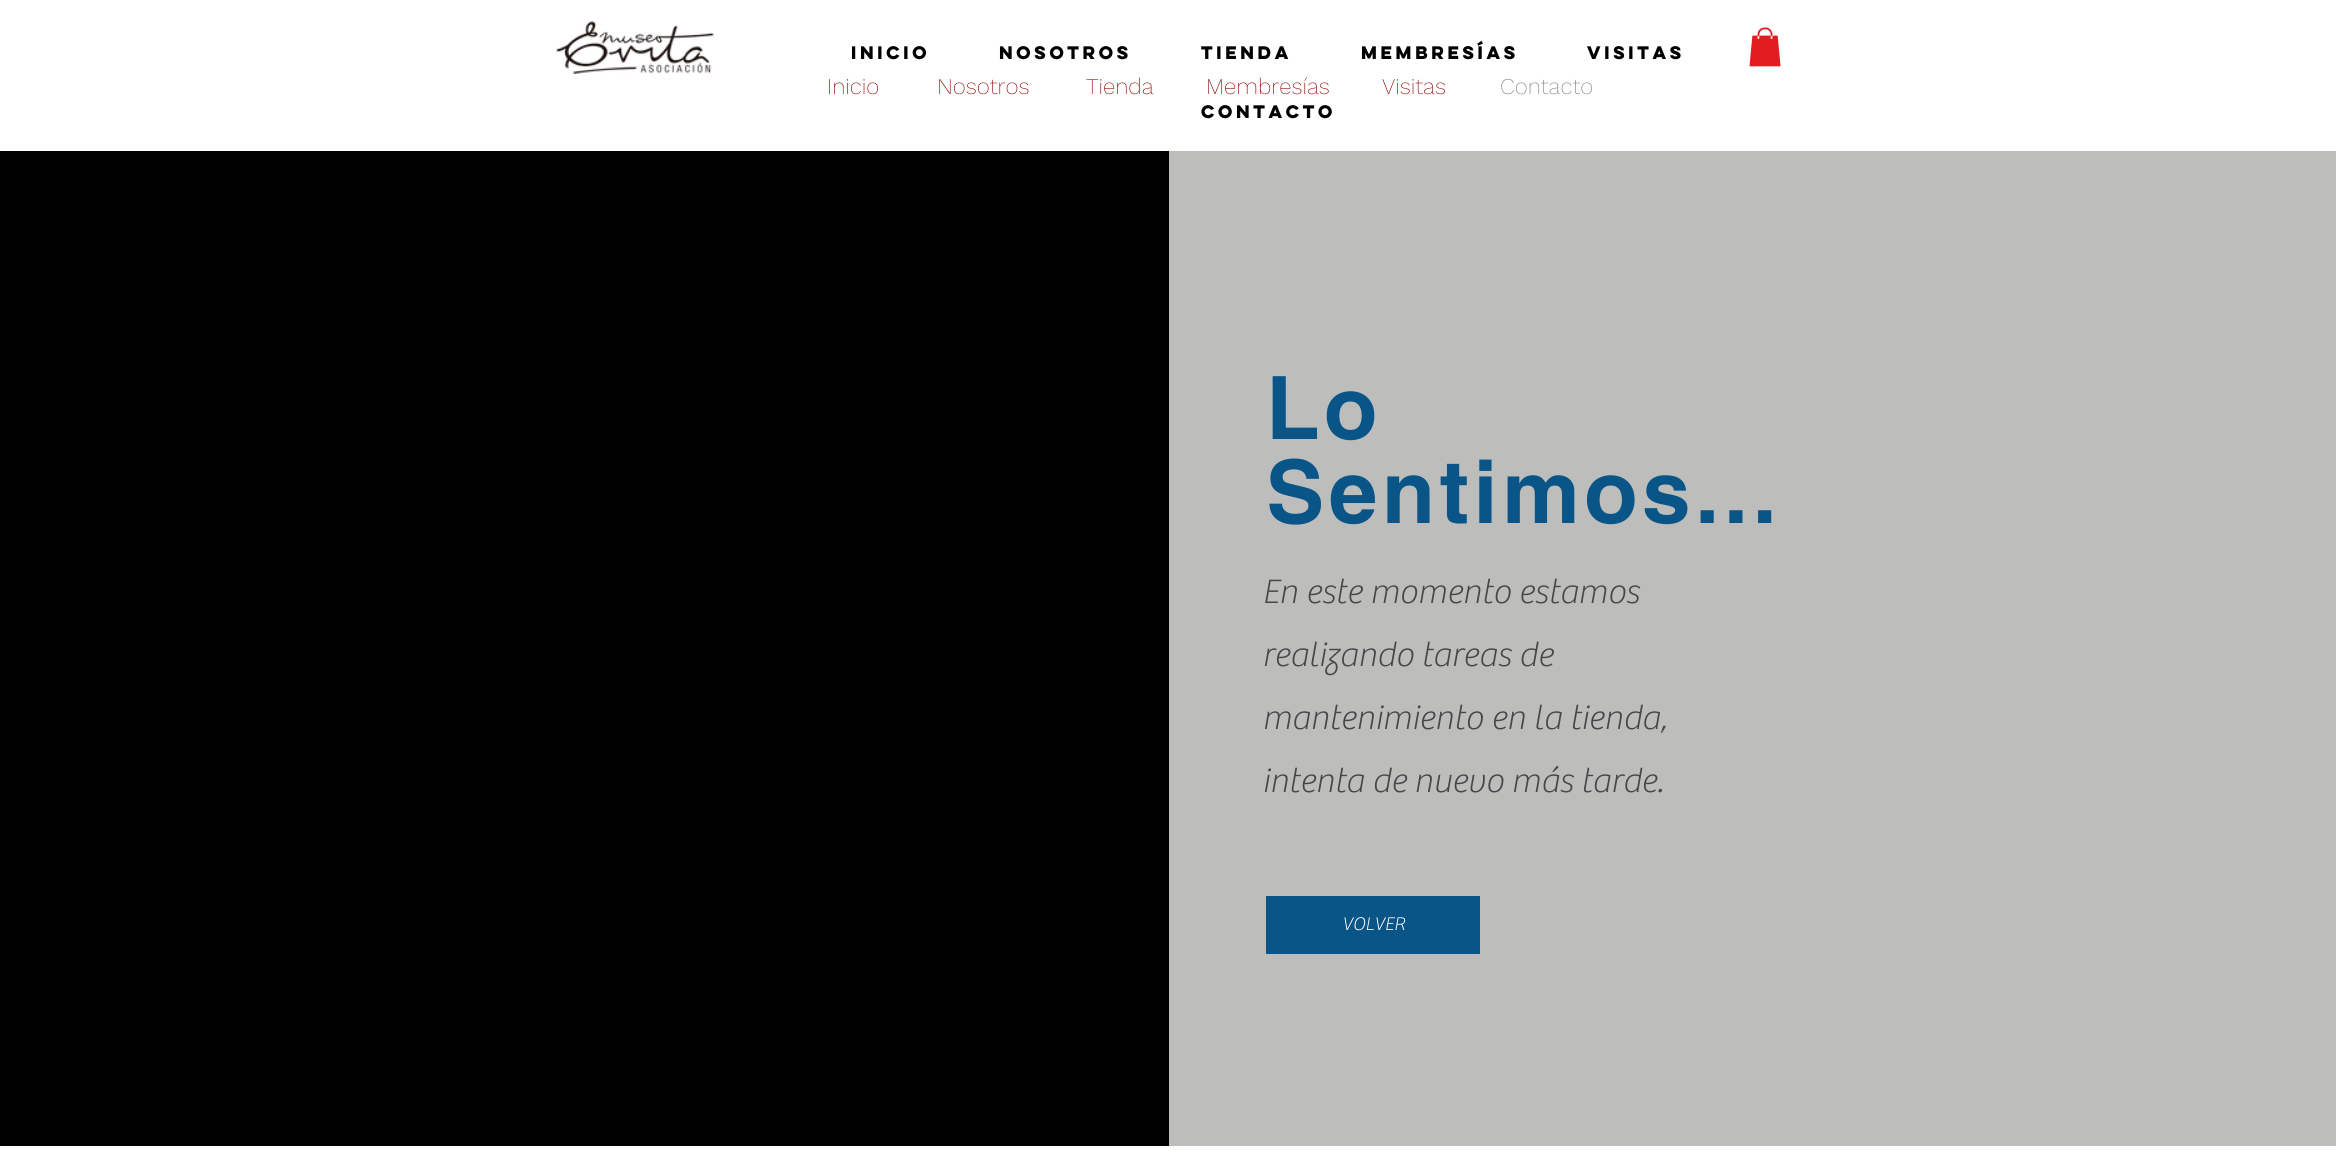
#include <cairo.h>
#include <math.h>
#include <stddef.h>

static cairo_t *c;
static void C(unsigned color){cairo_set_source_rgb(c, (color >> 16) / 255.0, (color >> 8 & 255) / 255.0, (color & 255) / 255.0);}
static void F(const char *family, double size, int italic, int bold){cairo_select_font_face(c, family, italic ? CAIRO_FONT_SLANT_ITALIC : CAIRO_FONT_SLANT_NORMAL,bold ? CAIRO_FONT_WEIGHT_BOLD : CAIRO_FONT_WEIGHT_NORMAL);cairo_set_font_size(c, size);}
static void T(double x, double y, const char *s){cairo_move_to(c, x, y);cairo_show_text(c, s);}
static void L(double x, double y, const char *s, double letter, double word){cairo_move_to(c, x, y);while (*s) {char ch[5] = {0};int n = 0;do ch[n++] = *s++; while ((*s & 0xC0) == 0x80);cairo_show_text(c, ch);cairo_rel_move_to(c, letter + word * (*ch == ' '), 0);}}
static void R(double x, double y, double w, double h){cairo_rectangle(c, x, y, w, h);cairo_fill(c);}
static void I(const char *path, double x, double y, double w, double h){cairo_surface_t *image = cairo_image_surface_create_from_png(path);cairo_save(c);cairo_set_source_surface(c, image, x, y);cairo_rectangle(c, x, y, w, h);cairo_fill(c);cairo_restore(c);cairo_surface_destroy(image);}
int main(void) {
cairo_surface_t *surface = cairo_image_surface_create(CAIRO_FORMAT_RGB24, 2336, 1153);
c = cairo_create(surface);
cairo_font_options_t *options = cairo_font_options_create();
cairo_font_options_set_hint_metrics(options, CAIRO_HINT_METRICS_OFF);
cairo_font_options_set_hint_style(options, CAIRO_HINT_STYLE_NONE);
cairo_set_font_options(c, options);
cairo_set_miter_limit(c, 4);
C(0xffffff);
cairo_paint(c);
I("1.png",556,21,158,53);
F("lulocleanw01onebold",16.25,0,1);
C(0x000000);
T(851,59,"Inicio");
T(999,59,"Nosotros");
T(1201,59,"Tienda");
T(1361,59,"Membresías");
T(1587,59,"Visitas");
T(1201,118,"Contacto");
I("2.png",1749,27,32,40);
F("Work Sans ExtraLight",22.5,0,0);
C(0x8b0000);
T(827,94,"Inicio");
T(937,94,"Nosotros");
T(1086,94,"Tienda");
T(1206,94,"Membresías");
T(1382,94,"Visitas");
C(0x7a7a7a);
T(1500,94,"Contacto");
C(0x000000);
R(0,151,1169,995);
C(0xbdbdbc);
R(1169,151,1167,995);
F("helvetica",87.5,0,1);
C(0x0a5587);
L(1266,439,"Lo",4.4,0);
L(1266,523,"Sentimos...",4.4,0);
F("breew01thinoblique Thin",35,0,0);
C(0x474747);
T(1262,603,"En este momento estamos");
T(1262,666,"realizando tareas de");
T(1262,729,"mantenimiento en la tienda,");
T(1262,792,"intenta de nuevo más tarde.");
C(0x0a5587);
R(1266,896,214,58);
F("breew01thinoblique Thin",19,0,0);
C(0xfffffe);
T(1342,930,"VOLVER");
cairo_surface_write_to_png(surface, "o.png");
cairo_font_options_destroy(options);
cairo_destroy(c);
cairo_surface_destroy(surface);
return 0;
}
